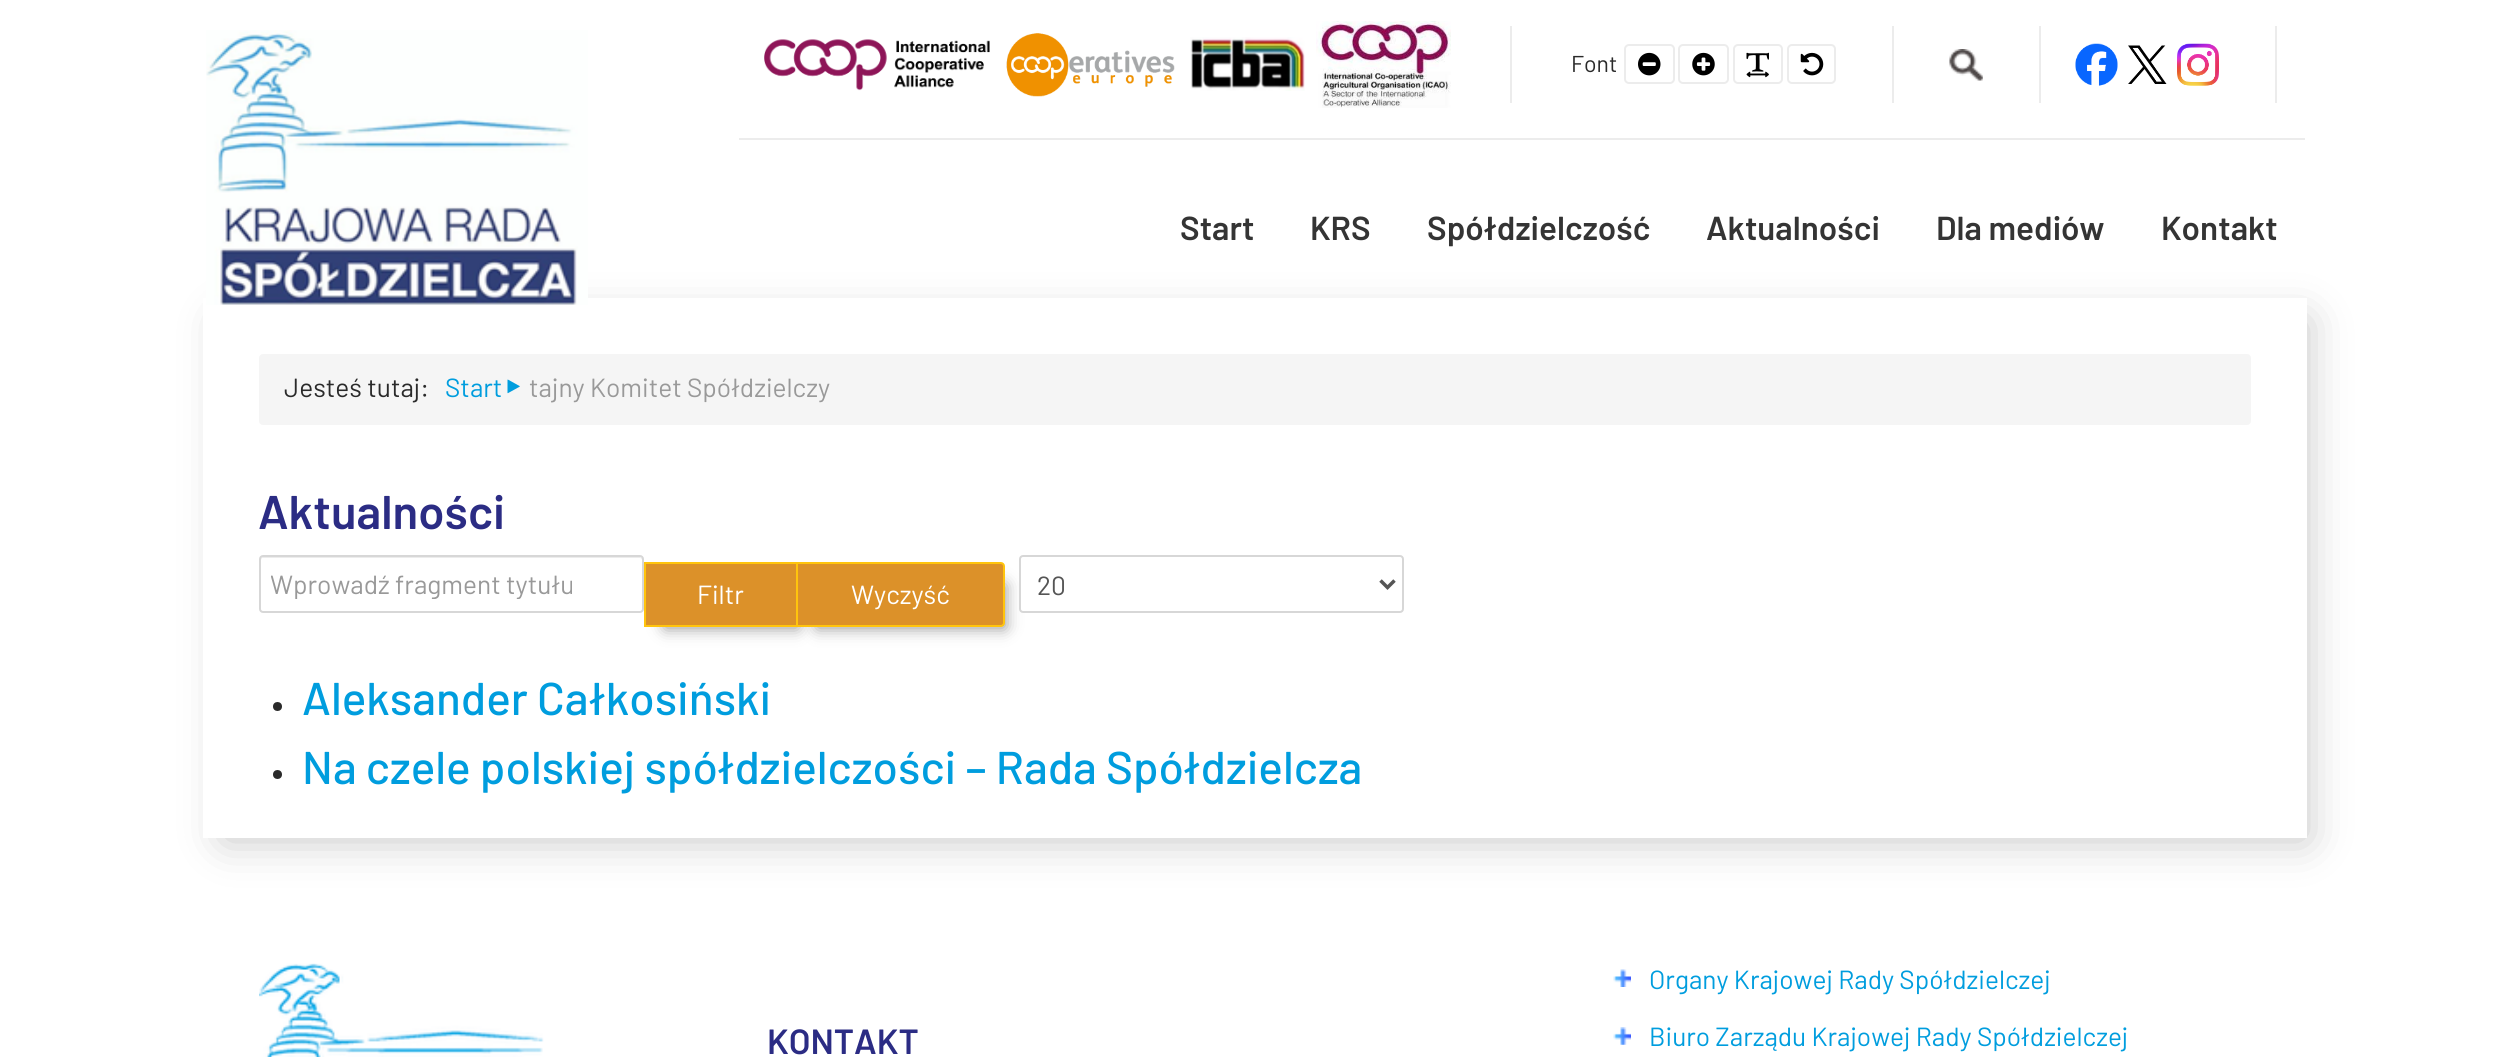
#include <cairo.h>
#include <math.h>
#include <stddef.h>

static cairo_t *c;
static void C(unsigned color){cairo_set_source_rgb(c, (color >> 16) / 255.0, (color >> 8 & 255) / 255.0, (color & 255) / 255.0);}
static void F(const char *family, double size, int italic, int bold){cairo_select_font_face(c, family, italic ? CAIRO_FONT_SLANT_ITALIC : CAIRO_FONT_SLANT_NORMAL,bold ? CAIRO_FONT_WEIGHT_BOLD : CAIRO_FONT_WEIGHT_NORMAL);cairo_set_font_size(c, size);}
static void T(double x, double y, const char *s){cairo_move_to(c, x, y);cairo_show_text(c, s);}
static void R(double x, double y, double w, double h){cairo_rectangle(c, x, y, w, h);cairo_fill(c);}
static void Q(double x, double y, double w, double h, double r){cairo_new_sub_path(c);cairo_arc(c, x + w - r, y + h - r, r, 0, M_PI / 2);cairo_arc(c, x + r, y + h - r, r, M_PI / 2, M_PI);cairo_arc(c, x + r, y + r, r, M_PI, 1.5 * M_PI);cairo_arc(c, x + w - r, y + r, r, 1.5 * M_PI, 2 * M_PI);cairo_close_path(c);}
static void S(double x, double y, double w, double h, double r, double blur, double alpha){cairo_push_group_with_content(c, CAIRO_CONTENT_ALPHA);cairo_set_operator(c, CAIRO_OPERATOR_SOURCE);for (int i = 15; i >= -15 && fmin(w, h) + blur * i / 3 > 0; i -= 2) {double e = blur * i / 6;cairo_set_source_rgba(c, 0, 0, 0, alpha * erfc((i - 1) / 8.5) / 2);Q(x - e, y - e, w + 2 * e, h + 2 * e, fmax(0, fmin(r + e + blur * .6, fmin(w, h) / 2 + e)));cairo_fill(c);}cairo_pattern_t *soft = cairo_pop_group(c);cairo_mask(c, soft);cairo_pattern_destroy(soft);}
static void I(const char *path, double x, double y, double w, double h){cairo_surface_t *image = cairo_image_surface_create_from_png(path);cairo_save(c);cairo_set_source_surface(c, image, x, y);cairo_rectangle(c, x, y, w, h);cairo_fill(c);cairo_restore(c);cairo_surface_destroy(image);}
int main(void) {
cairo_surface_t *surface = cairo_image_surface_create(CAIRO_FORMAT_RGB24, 2507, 1057);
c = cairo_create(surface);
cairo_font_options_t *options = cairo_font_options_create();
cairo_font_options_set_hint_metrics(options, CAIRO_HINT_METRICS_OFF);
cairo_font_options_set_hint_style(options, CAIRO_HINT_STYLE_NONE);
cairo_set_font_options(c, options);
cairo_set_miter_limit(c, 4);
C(0xffffff);
cairo_paint(c);
cairo_save(c);
cairo_set_fill_rule(c,CAIRO_FILL_RULE_EVEN_ODD);
cairo_new_path(c);
cairo_move_to(c,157,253);
cairo_line_to(c,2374,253);
cairo_line_to(c,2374,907);
cairo_line_to(c,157,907);
cairo_close_path(c);
cairo_move_to(c,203,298);
cairo_line_to(c,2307,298);
cairo_line_to(c,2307,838);
cairo_line_to(c,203,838);
cairo_close_path(c);
cairo_clip(c);
C(0x000000);
S(224,320,2083,520,0,22,.23);
cairo_restore(c);
I("1.png",206,30,382,275);
C(0xececec);
R(739,138,1566,2);
R(1510,26,2,77);
I("2.png",764,39,226,52);
I("3.png",1006,33,169,64);
I("4.png",1190,37,115,54);
I("5.png",1316,21,135,87);
R(1892,26,2,77);
F("Barlow",23,0,0);
C(0x2a2a2a);
T(1571,72,"Font");
Q(1625,45,49,38,4);
C(0xececec);
cairo_stroke(c);
I("6.png",1638,52,23,24);
Q(1679,45,49,38,4);
cairo_stroke(c);
I("7.png",1692,52,23,24);
Q(1734,45,48,38,4);
cairo_stroke(c);
I("8.png",1746,52,23,26);
Q(1788,45,47,38,4);
cairo_stroke(c);
I("9.png",1800,52,24,24);
R(2039,26,2,77);
I("10.png",1949,49,34,32);
R(2275,26,2,77);
I("11.png",2075,43,43,43);
I("12.png",2128,45,39,39);
I("13.png",2177,43,42,43);
F("Barlow SemiBold",33.25,0,0);
C(0x343434);
T(1180,240,"Start");
T(1310,240,"KRS");
T(1427,240,"Spółdzielczość");
T(1706,240,"Aktualności");
T(1936,240,"Dla mediów");
T(2161,240,"Kontakt");
C(0xf5f5f5);
Q(259,354,1992,71,4);
cairo_fill(c);
F("Barlow",26.25,0,0);
C(0x2a2a2a);
T(284,397,"Jesteś tutaj:");
C(0x009dde);
T(445,397,"Start");
I("14.png",507,379,13,15);
C(0x999999);
T(529,397,"tajny Komitet Spółdzielczy");
F("Barlow SemiBold",47.25,0,0);
C(0x2b2c84);
T(258,529,"Aktualności");
C(0xececec);
cairo_new_path(c);
cairo_move_to(c,262,558);
cairo_line_to(c,640,558);
cairo_curve_to(c,641,558,642,559,642,560);
cairo_line_to(c,642,558);
cairo_line_to(c,640,557);
cairo_line_to(c,263,557);
cairo_curve_to(c,261,557,261,559,261,560);
cairo_close_path(c);
cairo_fill(c);
Q(260,556,383,56,3);
C(0xd7d7d7);
cairo_stroke(c);
cairo_save(c);
cairo_rectangle(c,271,567,361,32);
cairo_clip(c);
F("Barlow",26.25,0,0);
C(0x999999);
T(270,594,"Wprowadź fragment tytułu");
cairo_restore(c);
C(0x000000);
S(665,585,133,43,0,8,.43);
C(0xdc9129);
cairo_rectangle(c,645,563,152,63);
cairo_fill_preserve(c);
C(0xffc40d);
cairo_stroke(c);
F("Barlow",26.25,0,0);
C(0xffffff);
T(697,604,"Filtr");
C(0x000000);
S(817,585,188,43,0,8,.43);
C(0xdc9129);
cairo_new_path(c);
cairo_move_to(c,797,563);
cairo_line_to(c,1001,563);
cairo_curve_to(c,1002.5,563,1004,564.5,1004,566);
cairo_line_to(c,1004,623);
cairo_curve_to(c,1004,624.5,1002.5,626,1001,626);
cairo_line_to(c,797,626);
cairo_close_path(c);
cairo_fill_preserve(c);
C(0xffc40d);
cairo_stroke(c);
C(0xffffff);
T(851,604,"Wyczyść");
Q(1020,556,383,56,3);
cairo_fill_preserve(c);
C(0xd7d7d7);
cairo_stroke(c);
cairo_new_path(c);
cairo_move_to(c,1380.5,580.5);
cairo_line_to(c,1387.5,587.5);
cairo_line_to(c,1394.5,580.5);
C(0x555555);
cairo_set_line_width(c,3.5);
cairo_stroke(c);
T(1037,595,"20");
C(0x2a2a2a);
cairo_new_path(c);
cairo_arc(c,277.5,706.5,4.5,0,2 * M_PI);
cairo_fill(c);
F("Barlow Medium",45.9,0,0);
C(0x009dde);
T(302,715,"Aleksander Całkosiński");
C(0x2a2a2a);
cairo_new_path(c);
cairo_arc(c,277.5,774.5,4.5,0,2 * M_PI);
cairo_fill(c);
C(0x009dde);
T(302,784,"Na czele polskiej spółdzielczości – Rada Spółdzielcza");
I("15.png",259,963,285,94);
F("Barlow SemiBold",35,0,0);
C(0x2b2c84);
T(767,1054,"KONTAKT");
I("16.png",1613,969,18,18);
F("Barlow",26.25,0,0);
C(0x009dde);
T(1649,989,"Organy Krajowej Rady Spółdzielczej");
I("17.png",1613,1027,18,18);
T(1649,1046,"Biuro Zarządu Krajowej Rady Spółdzielczej");
cairo_surface_write_to_png(surface, "o.png");
cairo_font_options_destroy(options);
cairo_destroy(c);
cairo_surface_destroy(surface);
return 0;
}
